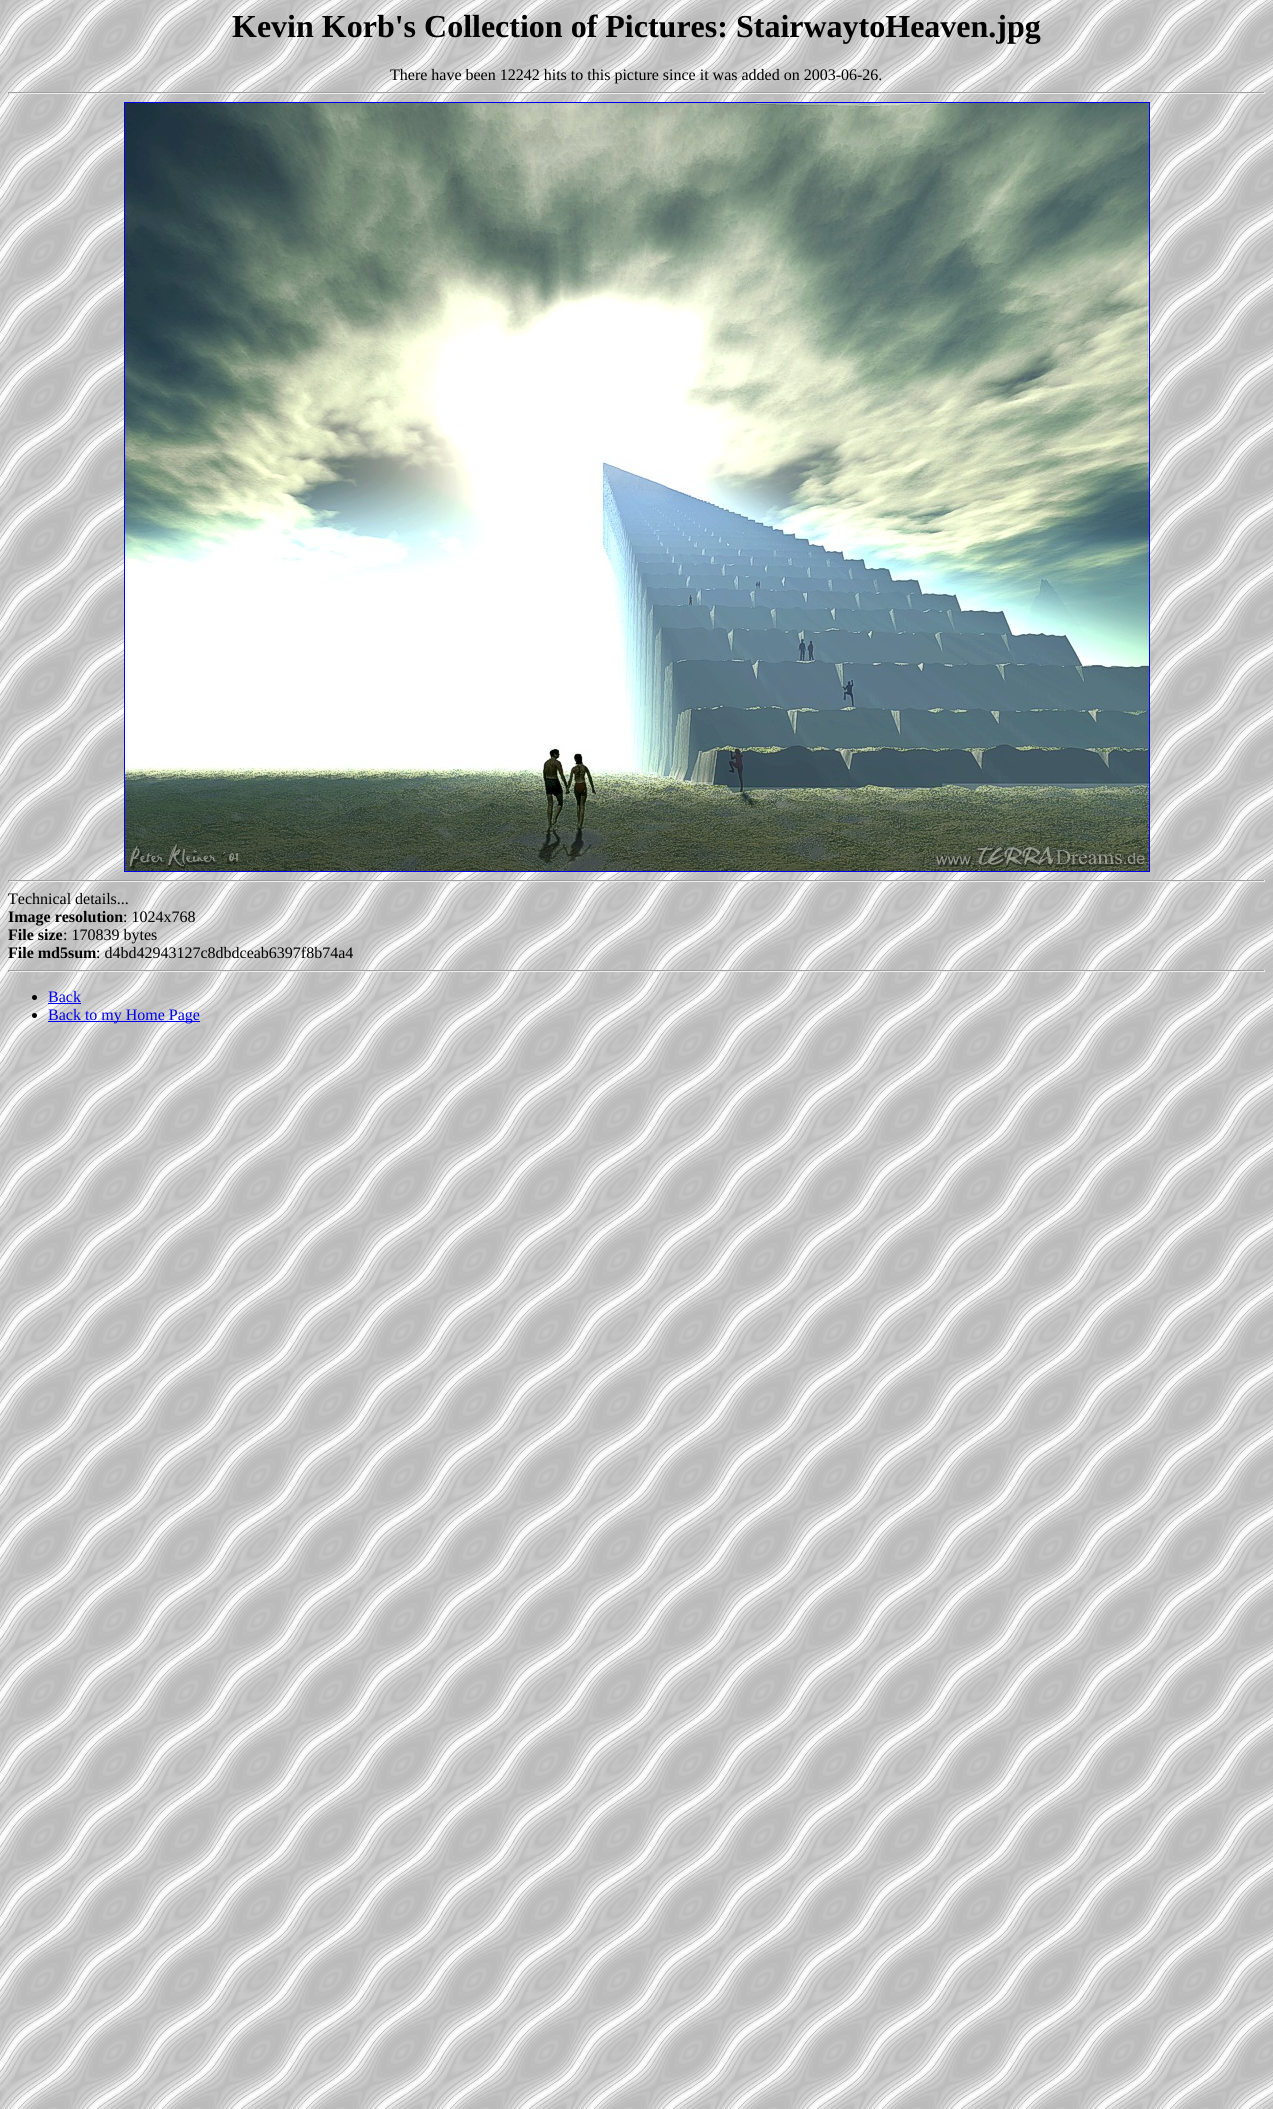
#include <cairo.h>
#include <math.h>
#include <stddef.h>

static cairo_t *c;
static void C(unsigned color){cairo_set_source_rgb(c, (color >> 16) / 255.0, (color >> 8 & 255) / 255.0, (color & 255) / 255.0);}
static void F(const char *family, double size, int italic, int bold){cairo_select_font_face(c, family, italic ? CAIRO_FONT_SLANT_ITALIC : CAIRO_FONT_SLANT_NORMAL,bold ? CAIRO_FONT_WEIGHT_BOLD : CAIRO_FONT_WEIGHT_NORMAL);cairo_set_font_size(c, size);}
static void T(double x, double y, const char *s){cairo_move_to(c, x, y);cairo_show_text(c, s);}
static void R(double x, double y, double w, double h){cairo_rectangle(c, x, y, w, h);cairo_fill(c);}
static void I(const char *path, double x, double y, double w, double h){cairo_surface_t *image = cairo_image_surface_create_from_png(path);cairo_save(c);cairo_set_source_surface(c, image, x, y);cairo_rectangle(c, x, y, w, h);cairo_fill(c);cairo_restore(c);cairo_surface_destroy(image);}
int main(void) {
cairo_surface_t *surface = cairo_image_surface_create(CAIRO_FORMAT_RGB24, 1273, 2109);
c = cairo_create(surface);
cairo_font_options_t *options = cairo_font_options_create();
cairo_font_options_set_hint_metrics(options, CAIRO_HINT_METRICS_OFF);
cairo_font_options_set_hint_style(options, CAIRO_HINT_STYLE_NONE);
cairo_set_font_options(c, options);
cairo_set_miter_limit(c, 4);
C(0xffffff);
cairo_paint(c);
I("1.png",0,0,1273,2109);
F("Liberation Serif",32,0,1);
C(0x000000);
T(232,37,"Kevin Korb's Collection of Pictures: StairwaytoHeaven.jpg");
F("Liberation Serif",16,0,0);
T(390,80,"There have been 12242 hits to this picture since it was added on 2003-06-26.");
C(0x9f9f9f);
R(8,92,1257,1);
C(0xeeeeee);
R(1264,92,1,2);
R(8,93,1257,1);
C(0x9f9f9f);
R(8,92,1,2);
cairo_rectangle(c,124.5,102.5,1025,769);
C(0x0000ee);
cairo_set_line_width(c,1);
cairo_stroke(c);
I("2.png",125,103,1024,768);
C(0x9f9f9f);
R(8,880,1257,1);
C(0xeeeeee);
R(1264,880,1,2);
R(8,881,1257,1);
C(0x9f9f9f);
R(8,880,1,2);
C(0x000000);
T(8,904,"Technical details...");
F("Liberation Serif",16,0,1);
T(8,922,"Image resolution");
F("Liberation Serif",16,0,0);
T(123,922,": 1024x768");
F("Liberation Serif",16,0,1);
T(8,940,"File size");
F("Liberation Serif",16,0,0);
T(63,940,": 170839 bytes");
F("Liberation Serif",16,0,1);
T(8,958,"File md5sum");
F("Liberation Serif",16,0,0);
T(96,958,": d4bd42943127c8dbdceab6397f8b74a4");
C(0x9f9f9f);
R(8,970,1257,1);
C(0xeeeeee);
R(1264,970,1,2);
R(8,971,1257,1);
C(0x9f9f9f);
R(8,970,1,2);
C(0x000000);
cairo_new_path(c);
cairo_arc(c,34.5,997.5,2.5,0,2 * M_PI);
cairo_fill(c);
C(0x0000ee);
T(48,1002,"Back");
R(48,1003,33,1);
C(0x000000);
cairo_new_path(c);
cairo_arc(c,34.5,1015.5,2.5,0,2 * M_PI);
cairo_fill(c);
C(0x0000ee);
R(48,1021,152,1);
T(48,1020,"Back to my Home Page");
cairo_surface_write_to_png(surface, "o.png");
cairo_font_options_destroy(options);
cairo_destroy(c);
cairo_surface_destroy(surface);
return 0;
}
